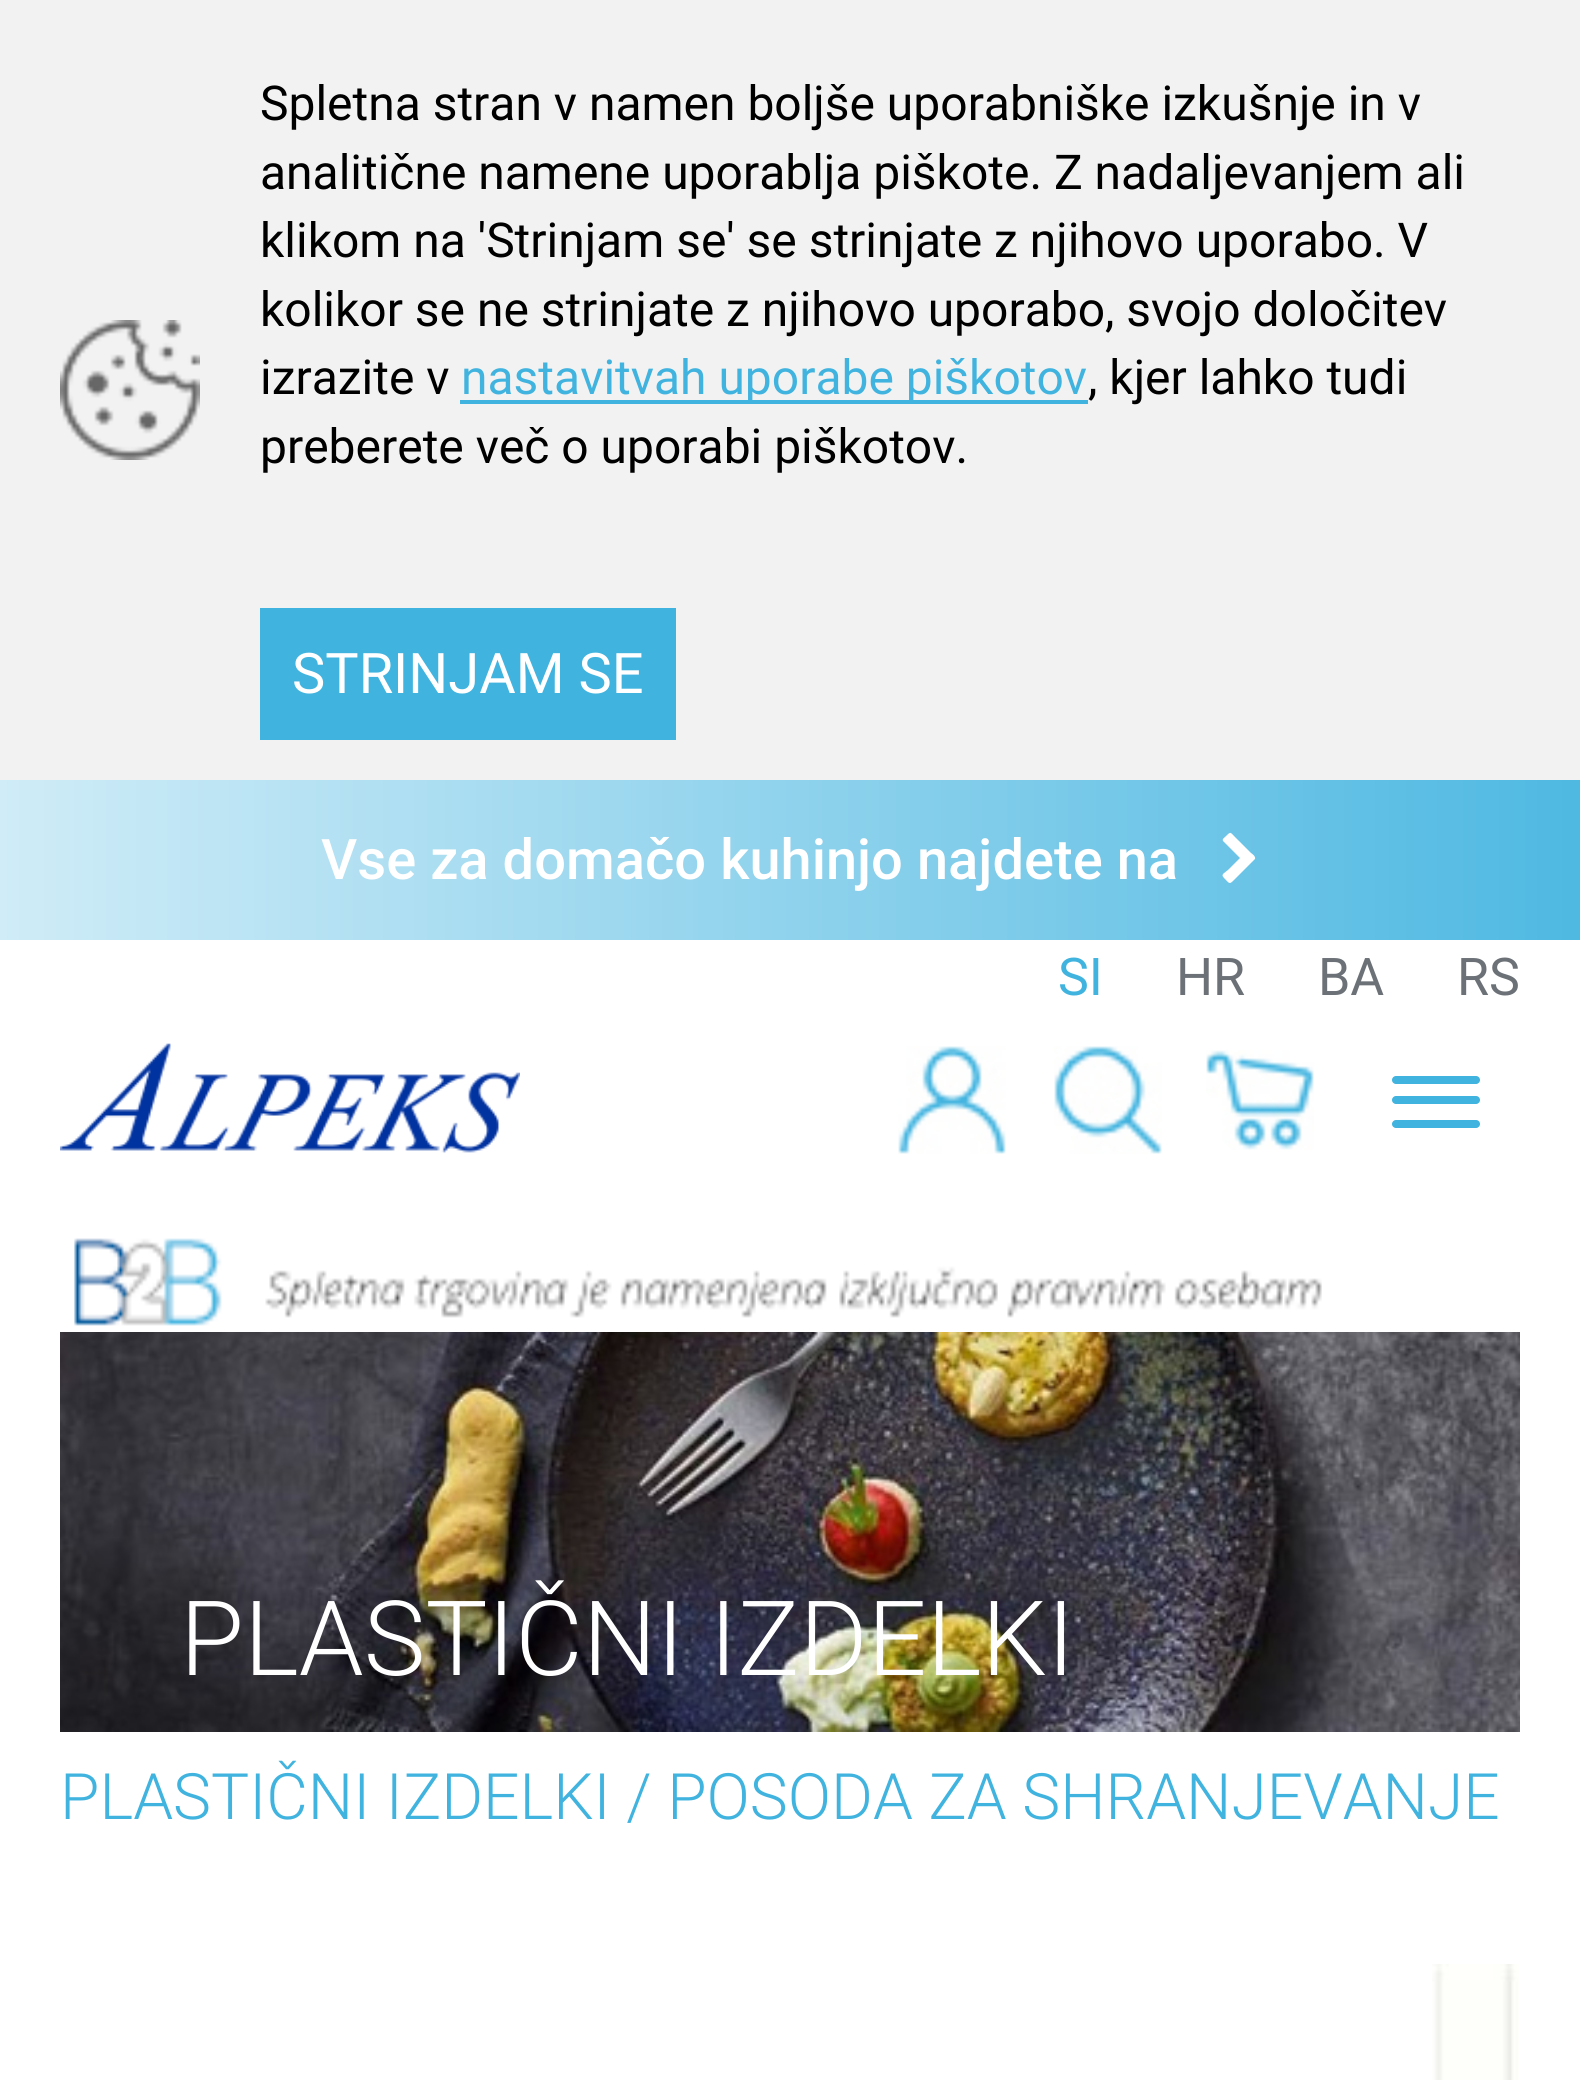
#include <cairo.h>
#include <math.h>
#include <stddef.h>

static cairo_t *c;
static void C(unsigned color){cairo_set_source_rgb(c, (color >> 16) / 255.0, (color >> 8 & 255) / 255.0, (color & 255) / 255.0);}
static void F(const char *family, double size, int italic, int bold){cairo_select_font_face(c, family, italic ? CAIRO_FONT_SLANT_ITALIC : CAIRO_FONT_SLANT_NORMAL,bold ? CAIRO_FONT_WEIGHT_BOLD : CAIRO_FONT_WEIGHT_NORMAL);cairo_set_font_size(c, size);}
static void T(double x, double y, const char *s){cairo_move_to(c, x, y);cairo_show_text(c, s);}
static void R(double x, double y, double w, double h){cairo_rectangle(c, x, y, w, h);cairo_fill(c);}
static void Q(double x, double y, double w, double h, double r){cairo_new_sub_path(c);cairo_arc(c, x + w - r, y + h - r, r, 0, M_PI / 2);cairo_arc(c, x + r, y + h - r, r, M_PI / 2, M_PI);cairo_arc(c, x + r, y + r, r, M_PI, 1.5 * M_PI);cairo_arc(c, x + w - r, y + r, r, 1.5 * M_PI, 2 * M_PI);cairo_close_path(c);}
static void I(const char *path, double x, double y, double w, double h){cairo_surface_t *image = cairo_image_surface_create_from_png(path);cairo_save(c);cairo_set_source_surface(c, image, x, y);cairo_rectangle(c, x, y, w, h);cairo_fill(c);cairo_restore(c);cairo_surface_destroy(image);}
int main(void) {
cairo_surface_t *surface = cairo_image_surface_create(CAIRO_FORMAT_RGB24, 1580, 2080);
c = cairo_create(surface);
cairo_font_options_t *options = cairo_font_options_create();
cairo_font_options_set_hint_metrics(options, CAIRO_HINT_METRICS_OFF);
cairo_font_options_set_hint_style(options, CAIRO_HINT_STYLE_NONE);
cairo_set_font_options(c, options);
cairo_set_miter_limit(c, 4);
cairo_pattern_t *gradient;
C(0xffffff);
cairo_paint(c);
C(0xf2f2f2);
R(0,0,1580,780);
I("1.png",60,320,140,140);
F("Roboto",48,0,0);
C(0x000000);
T(260,120,"Spletna stran v namen boljše uporabniške izkušnje in v");
T(260,189,"analitične namene uporablja piškote. Z nadaljevanjem ali");
T(260,257,"klikom na 'Strinjam se' se strinjate z njihovo uporabo. V");
T(260,326,"kolikor se ne strinjate z njihovo uporabo, svojo določitev");
T(260,394,"izrazite v");
C(0x40b3df);
R(460,400,628,4);
T(461,394,"nastavitvah uporabe piškotov");
C(0x000000);
T(1088,394,", kjer lahko tudi");
T(260,463,"preberete več o uporabi piškotov.");
C(0x40b3df);
R(260,608,416,132);
F("Roboto",56,0,0);
C(0xffffff);
T(292,693,"STRINJAM SE");
gradient = cairo_pattern_create_linear(0,860,1580,860);
cairo_pattern_add_color_stop_rgba(gradient,0,0.812,0.925,0.969,1);
cairo_pattern_add_color_stop_rgba(gradient,1,0.31,0.725,0.886,1);
cairo_set_source(c,gradient);
cairo_pattern_destroy(gradient);
R(0,780,1580,160);
F("Roboto Medium",56,0,0);
C(0xffffff);
T(321,879,"Vse za domačo kuhinjo najdete na");
cairo_new_path(c);
cairo_move_to(c,1255,859);
cairo_line_to(c,1235,879);
cairo_curve_to(c,1229,885,1230,884,1224,878);
cairo_curve_to(c,1220,874,1225,873,1229,869);
cairo_line_to(c,1240,858);
cairo_line_to(c,1223,841);
cairo_curve_to(c,1222,839,1224,838,1225,837);
cairo_curve_to(c,1231,831,1230,832,1235,837);
cairo_line_to(c,1251,853);
cairo_curve_to(c,1251,853,1256,856,1255,859);
cairo_close_path(c);
cairo_fill(c);
F("Roboto",52,0,0);
C(0x40b3df);
T(1058,995,"SI");
C(0x6b7177);
T(1176,995,"HR");
T(1318,995,"BA");
T(1457,995,"RS");
I("2.png",898,1046,108,108);
I("3.png",1054,1046,108,108);
I("4.png",1206,1050,108,100);
C(0x40b3df);
Q(1392,1076,88,8,4);
cairo_fill(c);
Q(1392,1096,88,8,4);
cairo_fill(c);
Q(1392,1120,88,8,4);
cairo_fill(c);
I("5.png",74,1238,1248,88);
I("6.png",60,1043,460,110);
I("7.png",60,1332,1460,400);
F("Roboto Light",104,0,0);
C(0xffffff);
T(180,1675,"PLASTIČNI IZDELKI");
F("Roboto Light",64,0,0);
C(0x40b3df);
T(60,1819,"PLASTIČNI IZDELKI / POSODA ZA SHRANJEVANJE");
I("8.png",1432,1964,87,116);
cairo_surface_write_to_png(surface, "o.png");
cairo_font_options_destroy(options);
cairo_destroy(c);
cairo_surface_destroy(surface);
return 0;
}
